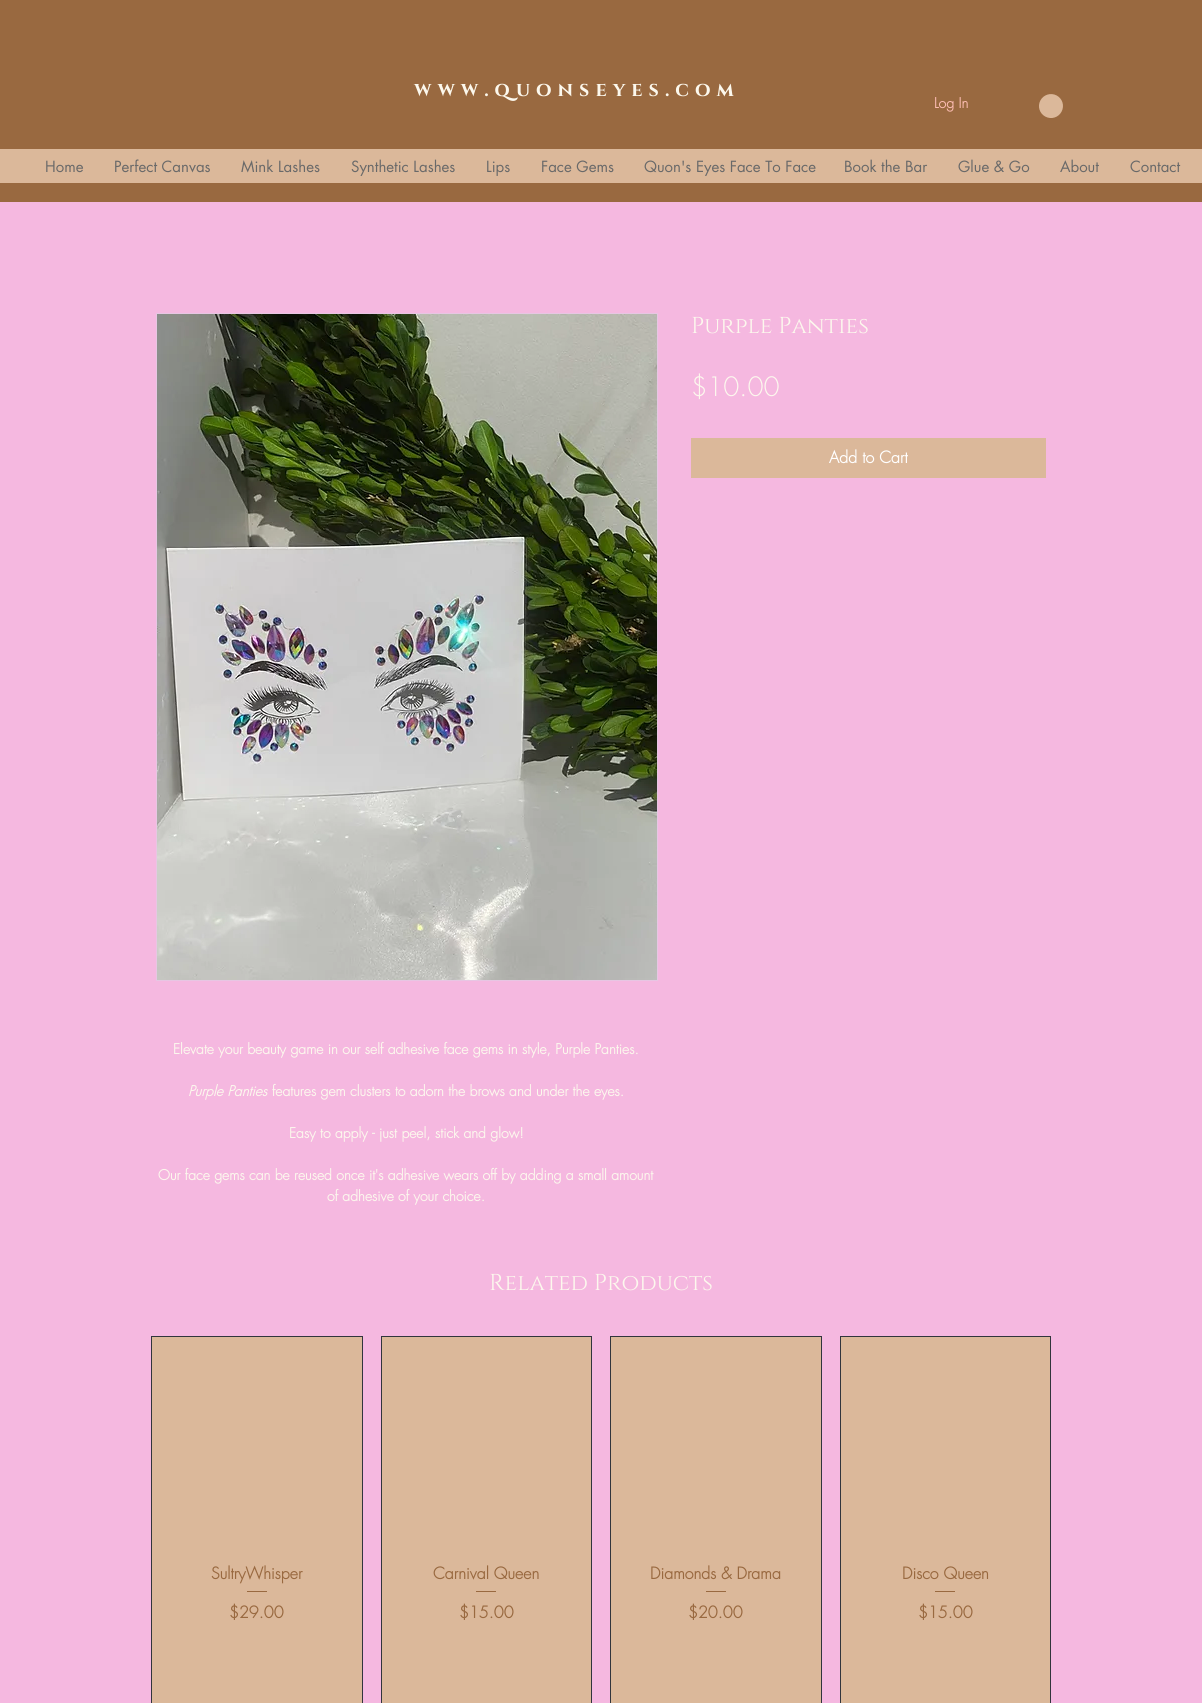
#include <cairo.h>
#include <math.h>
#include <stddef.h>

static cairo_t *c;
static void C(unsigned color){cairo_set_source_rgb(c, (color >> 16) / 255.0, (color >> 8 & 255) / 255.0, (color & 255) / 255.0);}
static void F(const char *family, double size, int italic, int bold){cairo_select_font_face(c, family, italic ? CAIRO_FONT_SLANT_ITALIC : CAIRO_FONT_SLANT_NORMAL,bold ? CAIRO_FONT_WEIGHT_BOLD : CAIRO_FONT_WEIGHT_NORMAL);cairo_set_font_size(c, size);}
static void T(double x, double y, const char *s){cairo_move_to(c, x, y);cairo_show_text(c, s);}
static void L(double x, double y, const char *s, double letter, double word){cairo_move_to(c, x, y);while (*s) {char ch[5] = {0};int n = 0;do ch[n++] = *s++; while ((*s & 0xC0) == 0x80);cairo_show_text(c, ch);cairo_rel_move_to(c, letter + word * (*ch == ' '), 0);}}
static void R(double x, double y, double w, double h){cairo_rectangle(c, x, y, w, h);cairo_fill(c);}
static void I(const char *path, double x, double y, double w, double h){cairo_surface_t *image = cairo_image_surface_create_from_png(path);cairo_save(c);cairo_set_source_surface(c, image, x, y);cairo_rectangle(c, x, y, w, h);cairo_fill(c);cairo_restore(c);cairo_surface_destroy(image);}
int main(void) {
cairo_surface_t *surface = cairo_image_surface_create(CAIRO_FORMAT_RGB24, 1202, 1703);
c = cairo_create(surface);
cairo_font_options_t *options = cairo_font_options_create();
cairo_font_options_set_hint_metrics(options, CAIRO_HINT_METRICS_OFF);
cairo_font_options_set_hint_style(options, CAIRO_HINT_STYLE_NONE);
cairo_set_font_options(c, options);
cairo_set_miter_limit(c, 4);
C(0xf5b8e0);
cairo_paint(c);
C(0x996940);
R(0,0,1202,202);
F("Cinzel",20,0,1);
C(0xfcf8ed);
L(414,96,"www.quonseyes.com",6,0);
F("futura",14,0,1);
C(0xfcbcb2);
T(934,108,"Log In");
I("1.png",1039,94,24,24);
C(0xdbb89a);
R(0,149,1202,34);
F("futura",15,0,0);
C(0x696969);
T(45,172,"Home");
T(114,172,"Perfect Canvas");
T(241,172,"Mink Lashes");
T(351,172,"Synthetic Lashes");
T(486,172,"Lips");
T(541,172,"Face Gems");
T(644,172,"Quon's Eyes Face To Face");
T(844,172,"Book the Bar");
T(958,172,"Glue & Go");
T(1060,172,"About");
T(1130,172,"Contact");
F("Cinzel",23,0,0);
C(0xfcf8ed);
T(691,333,"Purple Panties");
F("futura Light",26,0,0);
T(691,396,"$10.00");
C(0xdbb89a);
R(691,438,355,40);
F("futura",16,0,1);
C(0xffffff);
T(829,463,"Add to Cart");
cairo_rectangle(c,156.5,313.5,501,667);
C(0xe7c6e3);
cairo_set_line_width(c,1);
cairo_stroke(c);
I("2.png",157,314,500,666);
F("futura",14,0,1);
C(0xfcf8ed);
T(173,1054,"Elevate your beauty game in our self adhesive face gems in style, Purple Panties.");
F("futura",14,1,1);
T(188,1096,"Purple Panties");
F("futura",14,0,1);
T(272,1096,"features gem clusters to adorn the brows and under the eyes.");
T(289,1138,"Easy to apply - just peel, stick and glow!");
T(158,1180,"Our face gems can be reused once it's adhesive wears off by adding a small amount");
T(327,1201,"of adhesive of your choice.");
F("Cinzel",23,0,0);
T(489,1290,"Related Products");
C(0xdbb89a);
cairo_rectangle(c,151.5,1336.5,211,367);
cairo_fill_preserve(c);
C(0x31353d);
cairo_stroke(c);
F("futura",16,0,1);
C(0x996940);
T(211,1579,"SultryWhisper");
R(247,1591,20,1);
T(229,1618,"$29.00");
C(0xdbb89a);
cairo_rectangle(c,381.5,1336.5,210,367);
cairo_fill_preserve(c);
C(0x31353d);
cairo_stroke(c);
C(0x996940);
T(433,1579,"Carnival Queen");
R(476,1591,20,1);
T(459,1618,"$15.00");
C(0xdbb89a);
cairo_rectangle(c,610.5,1336.5,211,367);
cairo_fill_preserve(c);
C(0x31353d);
cairo_stroke(c);
C(0x996940);
T(650,1579,"Diamonds & Drama");
R(706,1591,20,1);
T(688,1618,"$20.00");
C(0xdbb89a);
cairo_rectangle(c,840.5,1336.5,210,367);
cairo_fill_preserve(c);
C(0x31353d);
cairo_stroke(c);
C(0x996940);
T(902,1579,"Disco Queen");
R(935,1591,20,1);
T(918,1618,"$15.00");
cairo_surface_write_to_png(surface, "o.png");
cairo_font_options_destroy(options);
cairo_destroy(c);
cairo_surface_destroy(surface);
return 0;
}
